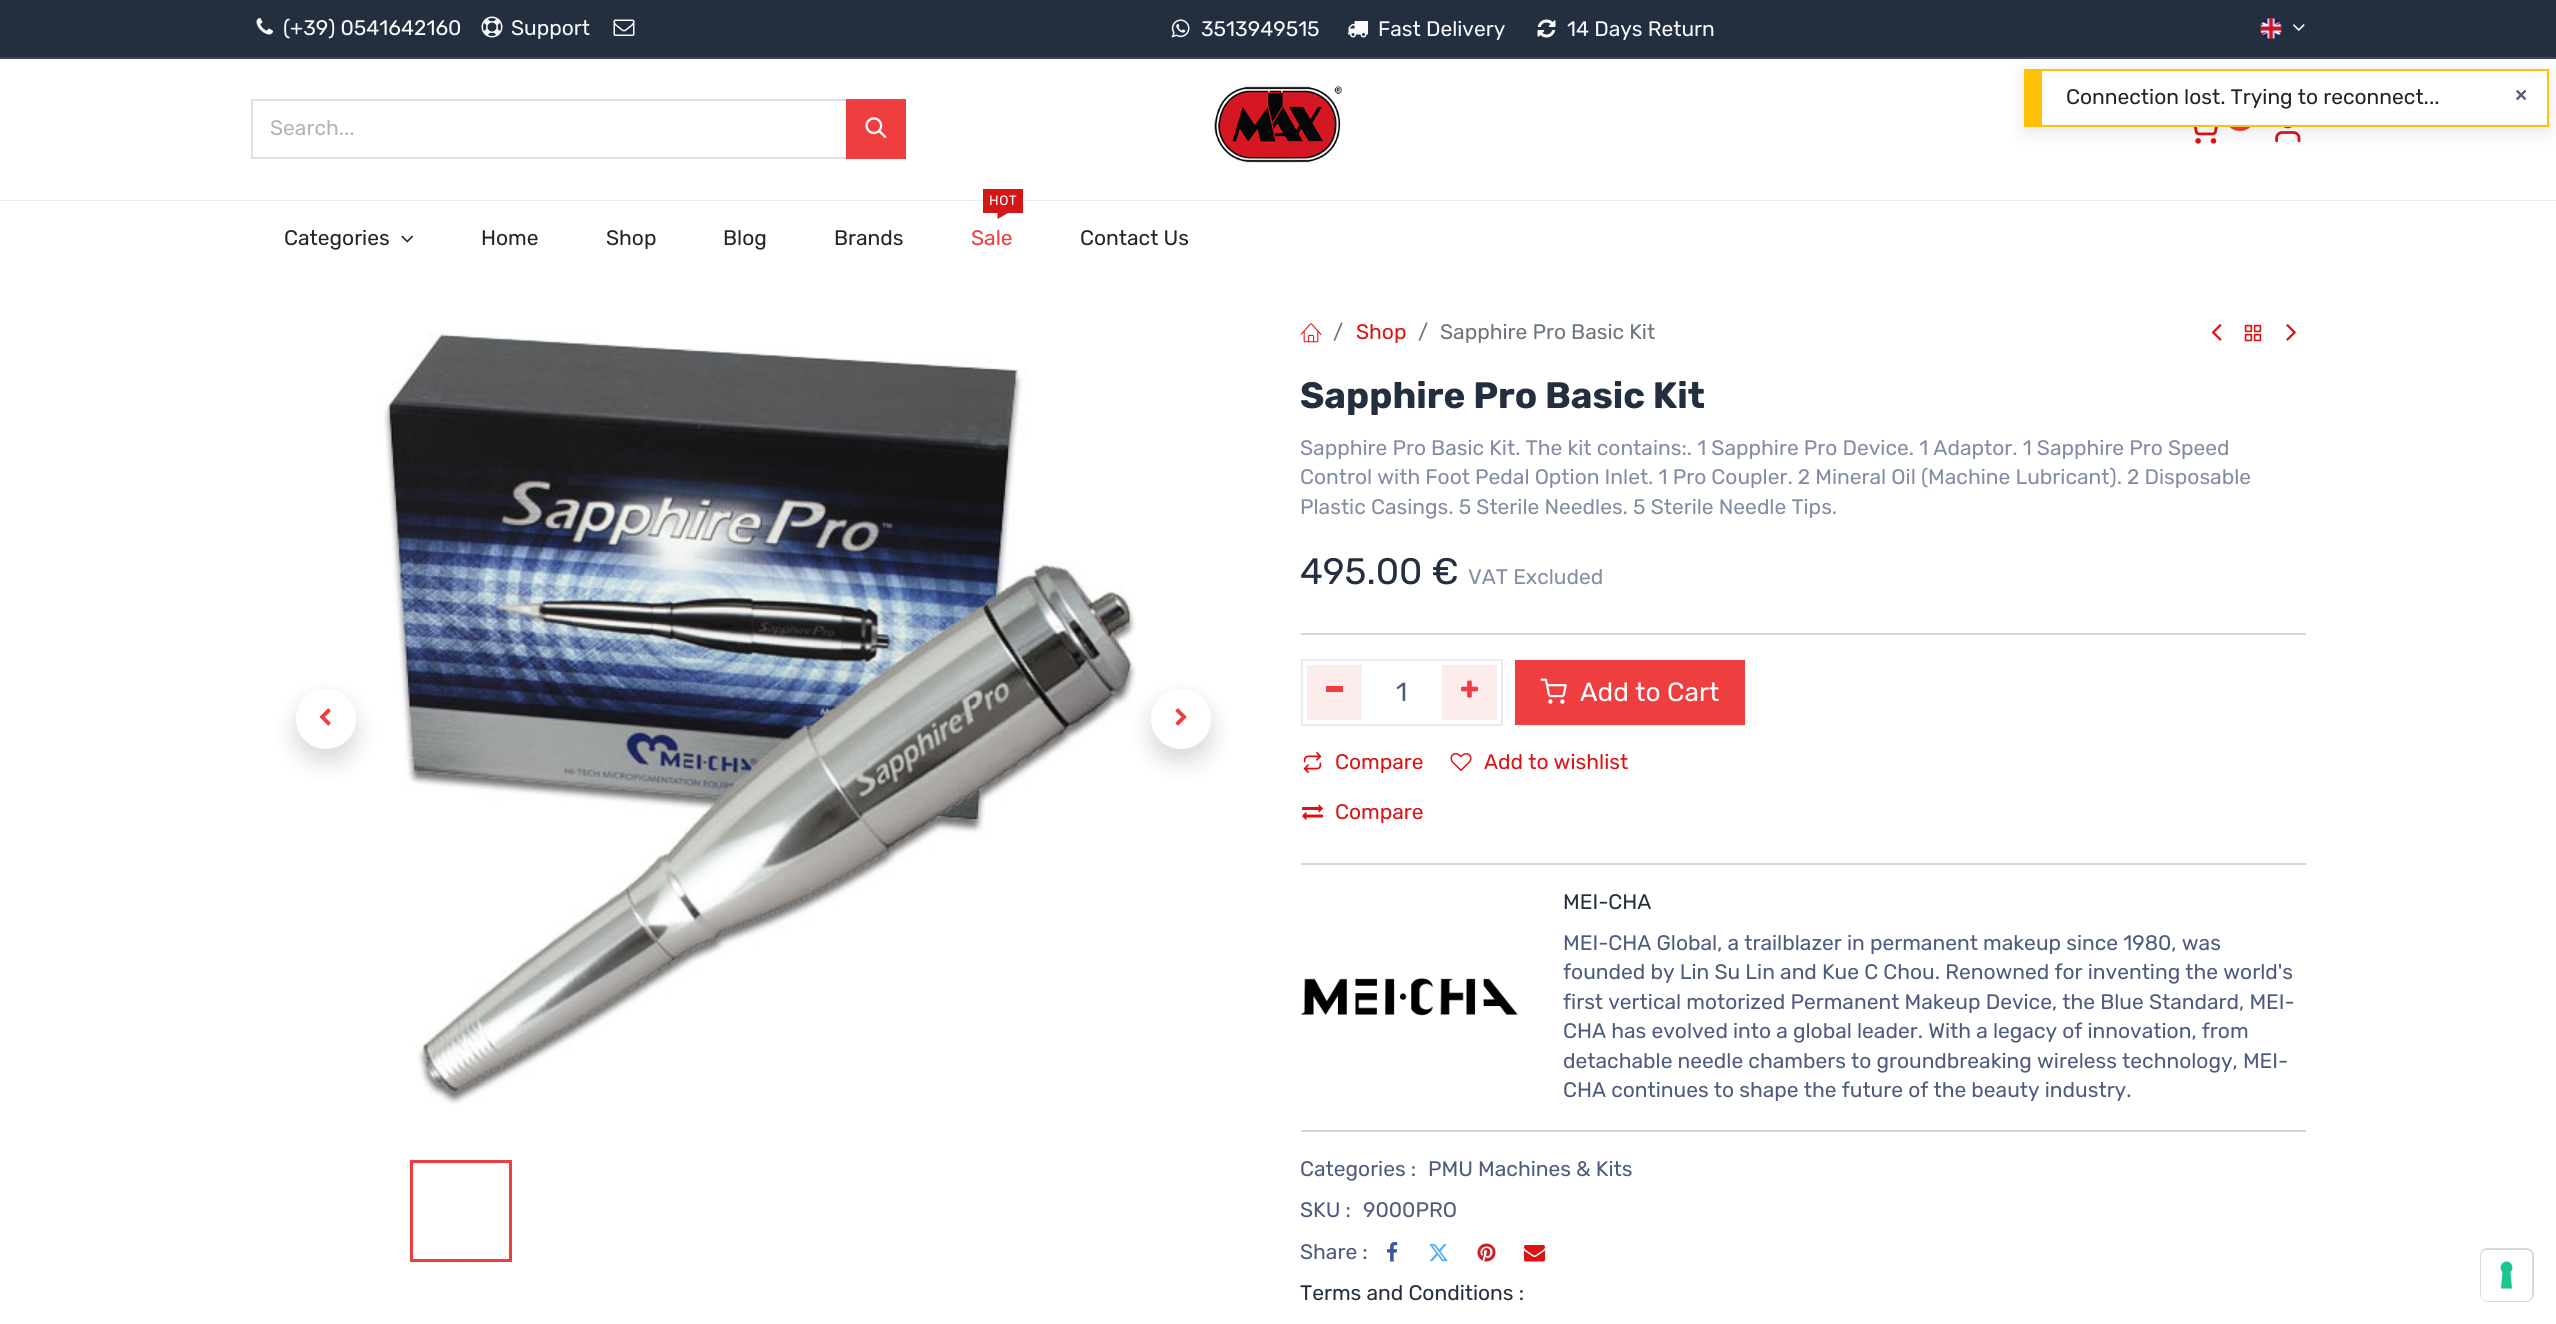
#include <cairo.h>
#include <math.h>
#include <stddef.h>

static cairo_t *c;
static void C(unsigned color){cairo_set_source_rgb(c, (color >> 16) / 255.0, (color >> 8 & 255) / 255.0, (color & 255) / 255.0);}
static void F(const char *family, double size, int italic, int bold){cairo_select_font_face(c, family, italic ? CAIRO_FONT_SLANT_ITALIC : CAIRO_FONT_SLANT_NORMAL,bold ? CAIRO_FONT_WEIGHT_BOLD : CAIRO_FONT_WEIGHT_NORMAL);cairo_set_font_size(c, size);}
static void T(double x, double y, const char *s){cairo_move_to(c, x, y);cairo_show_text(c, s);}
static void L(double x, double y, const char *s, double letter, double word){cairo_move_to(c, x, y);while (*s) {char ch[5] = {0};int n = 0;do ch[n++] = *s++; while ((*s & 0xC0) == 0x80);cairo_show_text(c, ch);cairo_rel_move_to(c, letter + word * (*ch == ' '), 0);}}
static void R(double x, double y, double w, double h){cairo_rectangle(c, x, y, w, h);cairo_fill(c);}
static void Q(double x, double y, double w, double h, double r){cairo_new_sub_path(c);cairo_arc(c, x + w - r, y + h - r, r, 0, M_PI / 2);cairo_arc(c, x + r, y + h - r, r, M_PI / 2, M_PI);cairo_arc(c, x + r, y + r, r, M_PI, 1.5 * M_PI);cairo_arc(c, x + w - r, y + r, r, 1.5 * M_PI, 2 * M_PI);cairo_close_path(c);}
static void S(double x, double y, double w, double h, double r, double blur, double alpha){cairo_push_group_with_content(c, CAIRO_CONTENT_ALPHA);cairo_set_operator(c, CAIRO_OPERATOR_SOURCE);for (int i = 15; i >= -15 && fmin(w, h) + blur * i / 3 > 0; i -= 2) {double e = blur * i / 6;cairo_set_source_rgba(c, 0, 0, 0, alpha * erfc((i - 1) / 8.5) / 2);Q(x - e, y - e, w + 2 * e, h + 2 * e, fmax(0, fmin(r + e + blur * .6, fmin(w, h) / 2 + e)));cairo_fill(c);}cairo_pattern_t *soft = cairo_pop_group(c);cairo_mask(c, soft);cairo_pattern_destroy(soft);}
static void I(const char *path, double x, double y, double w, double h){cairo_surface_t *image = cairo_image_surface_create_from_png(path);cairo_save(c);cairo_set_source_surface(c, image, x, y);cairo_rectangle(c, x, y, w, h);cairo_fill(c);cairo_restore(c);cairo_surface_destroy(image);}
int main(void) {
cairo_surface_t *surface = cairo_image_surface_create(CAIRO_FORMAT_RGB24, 2556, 1324);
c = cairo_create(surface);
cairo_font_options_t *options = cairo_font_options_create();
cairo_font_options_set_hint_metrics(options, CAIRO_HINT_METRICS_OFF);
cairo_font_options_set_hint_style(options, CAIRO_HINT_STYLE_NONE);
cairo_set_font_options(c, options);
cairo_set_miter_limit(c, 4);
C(0xffffff);
cairo_paint(c);
C(0x232f3e);
R(0,0,2556,57);
C(0x3d4855);
R(0,57,2556,2);
I("1.png",256,18,17,17);
F("Rubik",21,0,0);
C(0xf9fafe);
T(283,35,"(+39) 0541642160");
I("2.png",481,16,22,22);
T(511,35,"Support");
I("3.png",613,19,22,17);
I("4.png",1171,19,19,19);
T(1201,36,"3513949515");
I("5.png",1347,21,21,17);
T(1378,36,"Fast Delivery");
I("6.png",1537,19,19,19);
T(1567,36,"14 Days Return");
I("7.png",2260,18,22,21);
I("8.png",2293,24,12,7);
C(0xeaebef);
R(0,200,2556,1);
cairo_rectangle(c,252,100,595,58);
C(0xdee2e6);
cairo_stroke(c);
C(0xadb5bd);
T(270,135,"Search...");
C(0xef3e40);
R(846,99,60,60);
I("9.png",865,117,22,22);
I("10.png",1214,86,128,77);
Q(2225,102,30,29,14.5);
cairo_fill(c);
I("11.png",2193,127,25,17);
I("12.png",2275,127,26,16);
C(0x212529);
T(284,245,"Categories");
I("13.png",401,235,13,8);
T(481,245,"Home");
T(606,245,"Shop");
T(723,245,"Blog");
T(834,245,"Brands");
C(0xd41616);
R(983,189,40,24);
F("Rubik",13.5,0,0);
C(0xffffff);
L(989,205,"HOT",.5,0);
C(0xd41616);
cairo_new_path(c);
cairo_move_to(c,997.5,213);
cairo_line_to(c,1008,213);
cairo_line_to(c,997.5,219);
cairo_close_path(c);
cairo_fill(c);
F("Rubik",21,0,0);
C(0xef3e40);
T(971,245,"Sale");
C(0x212529);
T(1080,245,"Contact Us");
I("15.png",383,333,753,772);
C(0x000000);
S(296,701,60,60,30,12,.15);
C(0xffffff);
cairo_arc(c,326,719,30,0,2 * M_PI);
cairo_fill(c);
I("14.png",319,708,12,18);
C(0x000000);
S(1151,701,60,60,30,12,.15);
C(0xffffff);
cairo_arc(c,1181,719,30,0,2 * M_PI);
cairo_fill(c);
I("16.png",1175,708,12,18);
cairo_rectangle(c,411.5,1161.5,99,99);
C(0xef3e40);
cairo_set_line_width(c,3);
cairo_stroke(c);
I("17.png",1300,323,22,20);
C(0x6c757d);
T(1333,339,"/");
C(0xdd1215);
T(1356,339,"Shop");
C(0x6c757d);
T(1418,339,"/");
T(1440,339,"Sapphire Pro Basic Kit");
I("18.png",2211,324,11,17);
I("19.png",2244,324,18,18);
I("20.png",2286,324,10,17);
F("Rubik",36.75,0,1);
C(0x232f3e);
T(1300,408,"Sapphire Pro Basic Kit");
F("Rubik",21,0,0);
C(0x828ca3);
T(1300,455,"Sapphire Pro Basic Kit. The kit contains:. 1 Sapphire Pro Device. 1 Adaptor. 1 Sapphire Pro Speed");
T(1300,484,"Control with Foot Pedal Option Inlet. 1 Pro Coupler. 2 Mineral Oil (Machine Lubricant). 2 Disposable");
T(1300,514,"Plastic Casings. 5 Sterile Needles. 5 Sterile Needle Tips.");
F("Rubik",36.75,0,0);
C(0x232f3e);
T(1300,584,"495.00 €");
F("Rubik",21,0,0);
C(0x828ca3);
T(1468,584,"VAT Excluded");
C(0xd3d6de);
R(1301,633,1005,2);
cairo_rectangle(c,1302,660,200,65);
C(0xe9ecef);
cairo_set_line_width(c,2);
cairo_stroke(c);
C(0xfdecec);
R(1307,665,55,55);
C(0xef3e40);
R(1326,686,17,6);
F("Rubik",26.25,0,0);
C(0x4d5b7c);
T(1396,701,"1");
C(0xfdecec);
R(1442,665,55,55);
I("21.png",1461,680,17,18);
C(0xef3e40);
R(1515,660,230,65);
I("22.png",1540,678,27,26);
C(0xffffff);
T(1580,701,"Add to Cart");
I("23.png",1303,752,19,21);
F("Rubik",21,0,0);
C(0xdd1215);
T(1335,769,"Compare");
I("24.png",1450,753,22,18);
T(1484,769,"Add to wishlist");
I("25.png",1302,804,21,17);
T(1335,819,"Compare");
C(0xd3d6de);
R(1301,863,1005,2);
I("26.png",1300,978,218,38);
C(0x232f3e);
T(1563,909,"MEI-CHA");
C(0x4d5b7c);
T(1563,950,"MEI-CHA Global, a trailblazer in permanent makeup since 1980, was");
T(1563,979,"founded by Lin Su Lin and Kue C Chou. Renowned for inventing the world's");
T(1563,1009,"first vertical motorized Permanent Makeup Device, the Blue Standard, MEI-");
T(1563,1038,"CHA has evolved into a global leader. With a legacy of innovation, from");
T(1563,1068,"detachable needle chambers to groundbreaking wireless technology, MEI-");
T(1563,1097,"CHA continues to shape the future of the beauty industry.");
C(0xd3d6de);
R(1301,1130,1005,2);
C(0x4d5b7c);
T(1300,1176,"Categories :");
T(1428,1176,"PMU Machines & Kits");
T(1300,1217,"SKU :");
T(1363,1217,"9000PRO");
T(1300,1259,"Share :");
I("27.png",1387,1242,11,20);
I("28.png",1429,1244,19,18);
I("29.png",1477,1243,19,19);
I("30.png",1524,1245,21,17);
C(0x232f3e);
T(1300,1300,"Terms and Conditions :");
C(0x000000);
S(2024,75,525,57,0,9,.1);
C(0xffffff);
R(2042,71,505,54);
C(0xffc107);
R(2042,69,507,2);
R(2547,69,2,57);
R(2024,125,525,2);
R(2024,69,18,56);
C(0x212529);
T(2066,104,"Connection lost. Trying to reconnect...");
F("Liberation Sans",21,0,1);
C(0x4d5b7c);
T(2515,102,"×");
Q(2481,1249,52,52,7);
C(0xd9d9d9);
cairo_stroke(c);
C(0xffffff);
Q(2481,1250,51,51,6);
cairo_fill(c);
C(0x1cc691);
cairo_set_fill_rule(c,CAIRO_FILL_RULE_EVEN_ODD);
cairo_new_path(c);
cairo_move_to(c,2506.5,1261.5);
cairo_curve_to(c,2512,1261.5,2514.5,1268.5,2510.5,1272);
cairo_line_to(c,2512,1288.5);
cairo_line_to(c,2501,1288.5);
cairo_line_to(c,2502.5,1272);
cairo_curve_to(c,2498.5,1268.5,2501,1261.5,2506.5,1261.5);
cairo_close_path(c);
cairo_fill(c);
cairo_surface_write_to_png(surface, "o.png");
cairo_font_options_destroy(options);
cairo_destroy(c);
cairo_surface_destroy(surface);
return 0;
}
